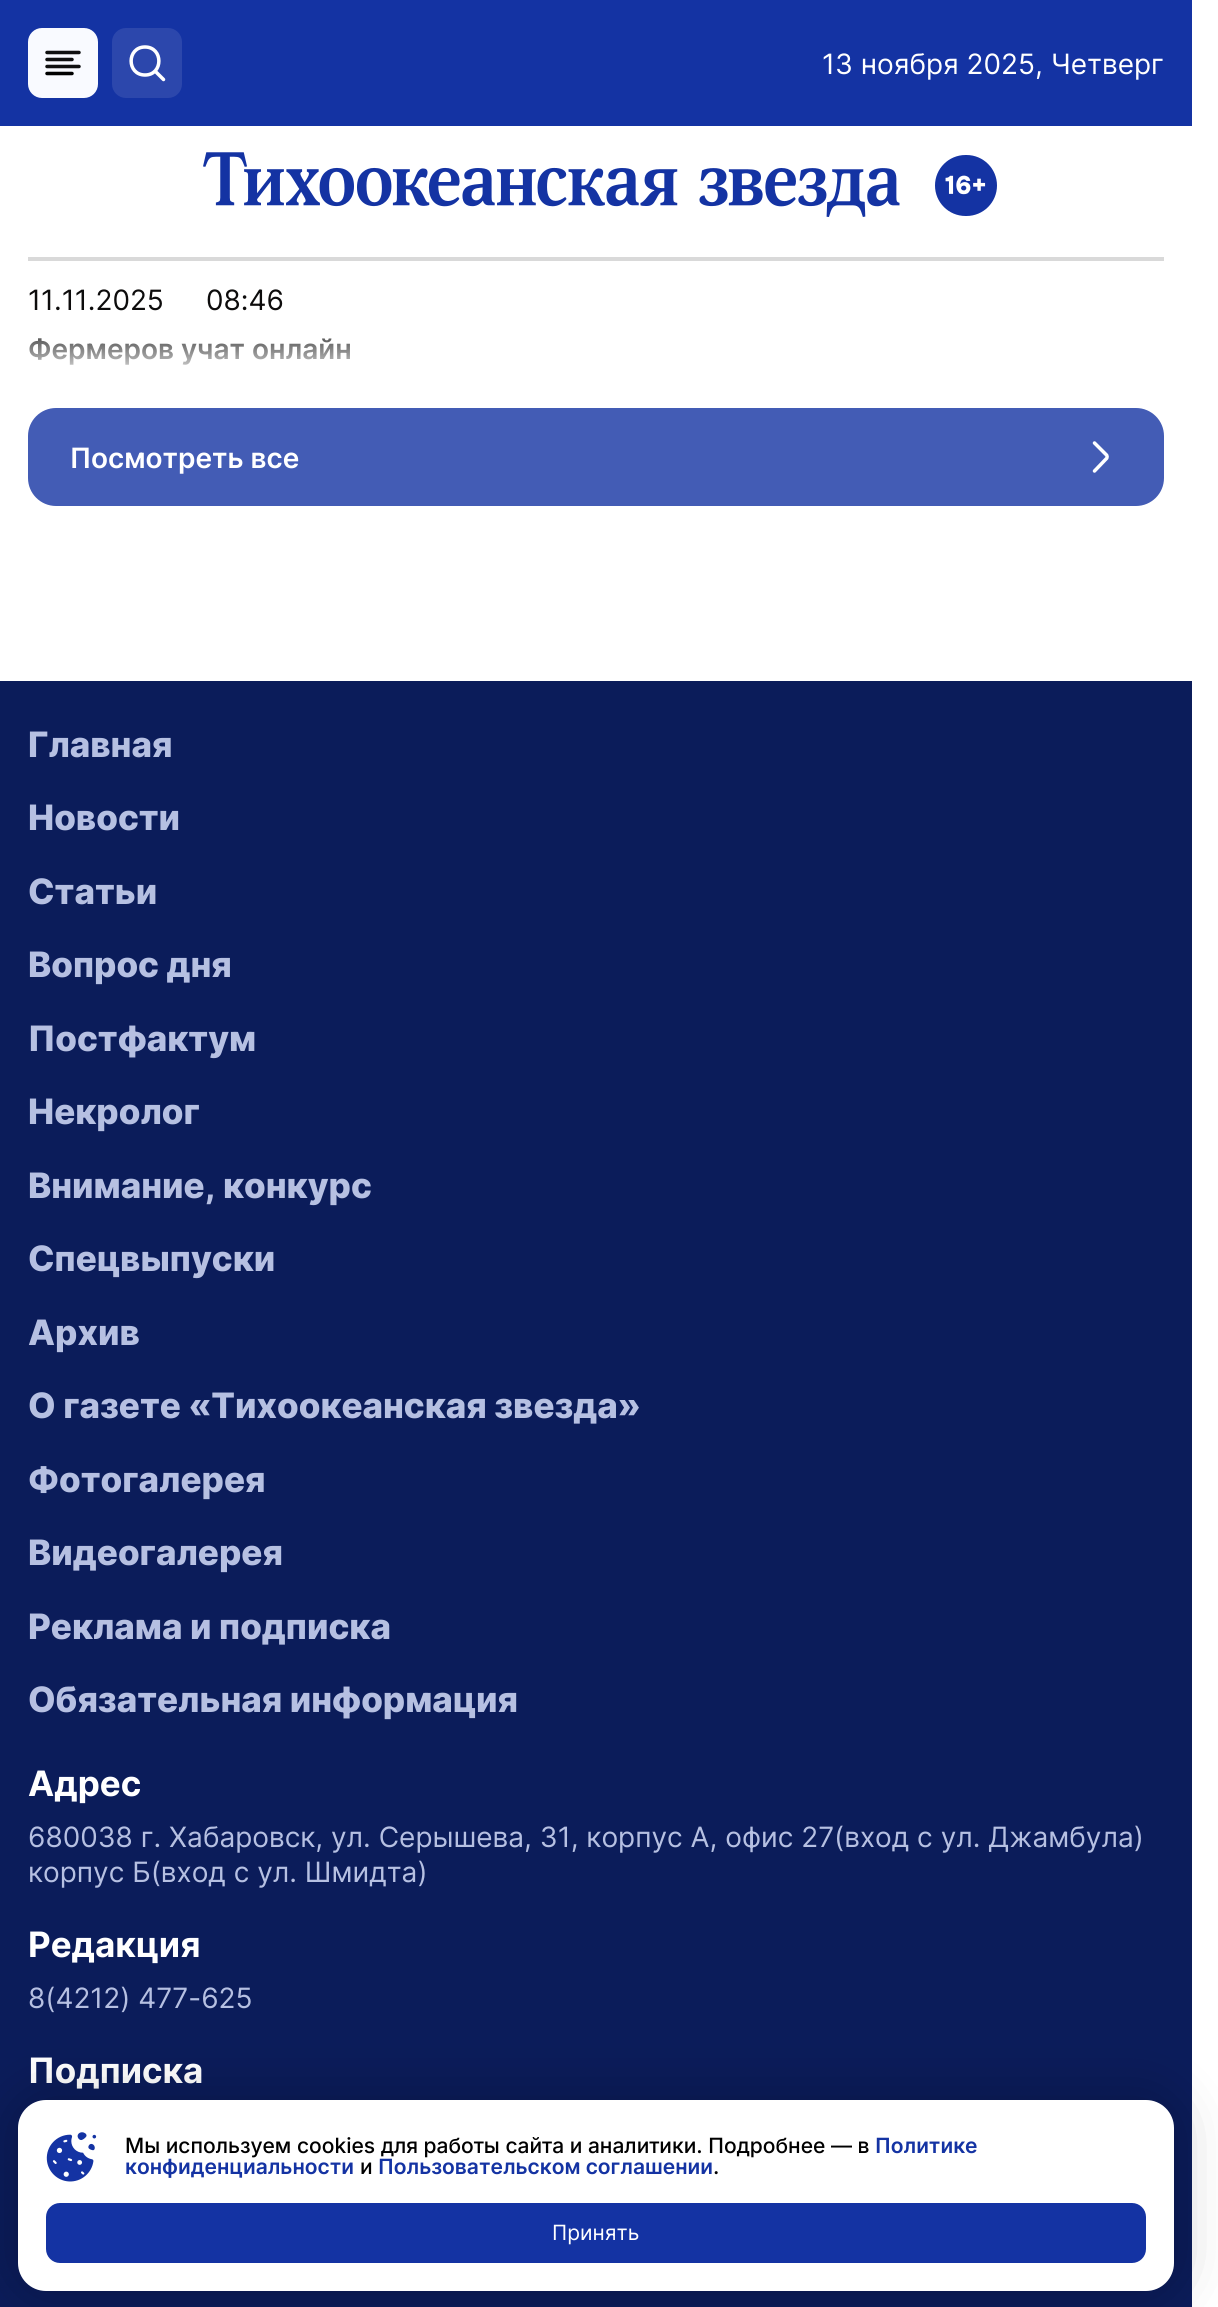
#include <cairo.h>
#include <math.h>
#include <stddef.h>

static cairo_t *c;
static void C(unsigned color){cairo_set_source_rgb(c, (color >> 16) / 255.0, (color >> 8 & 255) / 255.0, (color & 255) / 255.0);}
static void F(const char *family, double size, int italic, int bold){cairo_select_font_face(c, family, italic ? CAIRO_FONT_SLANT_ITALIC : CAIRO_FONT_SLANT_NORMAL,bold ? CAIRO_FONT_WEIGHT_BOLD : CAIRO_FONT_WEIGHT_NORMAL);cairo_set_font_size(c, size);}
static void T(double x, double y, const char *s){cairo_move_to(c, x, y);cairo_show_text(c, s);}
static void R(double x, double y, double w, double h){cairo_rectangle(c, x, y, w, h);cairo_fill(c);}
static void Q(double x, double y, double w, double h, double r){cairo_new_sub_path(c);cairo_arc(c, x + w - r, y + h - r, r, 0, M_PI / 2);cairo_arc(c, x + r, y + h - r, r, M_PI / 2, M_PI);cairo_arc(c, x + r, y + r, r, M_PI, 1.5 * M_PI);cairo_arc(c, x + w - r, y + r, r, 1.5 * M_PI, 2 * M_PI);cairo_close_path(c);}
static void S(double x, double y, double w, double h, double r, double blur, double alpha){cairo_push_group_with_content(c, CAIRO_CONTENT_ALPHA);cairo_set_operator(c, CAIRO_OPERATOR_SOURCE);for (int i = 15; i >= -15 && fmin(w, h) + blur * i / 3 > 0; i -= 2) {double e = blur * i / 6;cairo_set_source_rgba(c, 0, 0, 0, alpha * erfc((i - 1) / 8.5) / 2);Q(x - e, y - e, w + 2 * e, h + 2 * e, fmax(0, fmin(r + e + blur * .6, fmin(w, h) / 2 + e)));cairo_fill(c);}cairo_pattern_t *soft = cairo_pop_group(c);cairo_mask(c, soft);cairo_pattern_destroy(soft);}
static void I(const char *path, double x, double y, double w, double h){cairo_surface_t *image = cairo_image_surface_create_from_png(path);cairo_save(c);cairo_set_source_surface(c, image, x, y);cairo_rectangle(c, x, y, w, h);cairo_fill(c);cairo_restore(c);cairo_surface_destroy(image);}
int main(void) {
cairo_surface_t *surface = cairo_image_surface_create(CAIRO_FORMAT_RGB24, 1218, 2307);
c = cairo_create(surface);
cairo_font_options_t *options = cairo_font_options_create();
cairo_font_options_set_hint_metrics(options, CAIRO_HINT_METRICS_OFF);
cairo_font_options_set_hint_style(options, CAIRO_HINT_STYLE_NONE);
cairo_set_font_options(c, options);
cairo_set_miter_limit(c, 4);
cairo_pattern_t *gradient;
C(0xffffff);
cairo_paint(c);
C(0x1433a3);
R(0,0,1192,126);
C(0xf9faff);
Q(28,28,70,70,14);
cairo_fill(c);
cairo_new_path(c);
cairo_move_to(c,72,59.5);
cairo_line_to(c,47,59.5);
cairo_move_to(c,79,52.5);
cairo_line_to(c,47,52.5);
cairo_move_to(c,79,66.5);
cairo_line_to(c,47,66.5);
C(0x101011);
cairo_set_line_width(c,3.5);
cairo_set_line_cap(c,CAIRO_LINE_CAP_ROUND);
cairo_set_line_join(c,CAIRO_LINE_JOIN_ROUND);
cairo_stroke(c);
cairo_new_path(c);
cairo_move_to(c,72,73.5);
cairo_line_to(c,47,73.5);
C(0x000000);
cairo_stroke(c);
C(0x2c47ac);
Q(112,28,70,70,14);
cairo_fill(c);
cairo_new_path(c);
cairo_move_to(c,145,75);
cairo_curve_to(c,163.5,75,163.5,47,145,47);
cairo_curve_to(c,126.5,47,126.5,75,145,75);
cairo_close_path(c);
cairo_move_to(c,155,71);
cairo_line_to(c,163.5,79.5);
C(0xffffff);
cairo_stroke(c);
F("Inter",28,0,0);
T(822,74,"13 ноября 2025, Четверг");
I("1.png",203,152,697,65);
I("2.png",935,155,62,61);
C(0xd9d9d9);
R(28,257,1136,4);
C(0x0d0c0c);
T(28,310,"11.11.2025");
T(206,310,"08:46");
F("Inter SemiBold",28,0,0);
gradient = cairo_pattern_create_linear(596,316,596,366);
cairo_pattern_add_color_stop_rgba(gradient,0,0.035,0.035,0.035,1);
cairo_pattern_add_color_stop_rgba(gradient,1,0.761,0.761,0.761,1);
cairo_set_source(c,gradient);
cairo_pattern_destroy(gradient);
T(28,359,"Фермеров учат онлайн");
C(0x435cb5);
Q(28,408,1136,98,28);
cairo_fill(c);
C(0xffffff);
T(70,468,"Посмотреть все");
cairo_new_path(c);
cairo_move_to(c,1094.5,471);
cairo_line_to(c,1106,459);
cairo_curve_to(c,1107.5,458,1107.5,455.5,1106,454.5);
cairo_line_to(c,1094.5,443);
cairo_stroke(c);
C(0x0b1c5a);
R(0,681,1192,1626);
F("Inter ExtraBold",35,0,0);
C(0xb6c0e2);
T(28,757,"Главная");
T(28,830,"Новости");
T(28,904,"Статьи");
T(28,977,"Вопрос дня");
T(28,1051,"Постфактум");
T(28,1124,"Некролог");
T(28,1198,"Внимание, конкурс");
T(28,1271,"Спецвыпуски");
T(28,1345,"Архив");
T(28,1418,"О газете «Тихоокеанская звезда»");
T(28,1492,"Фотогалерея");
T(28,1565,"Видеогалерея");
T(28,1639,"Реклама и подписка");
T(28,1712,"Обязательная информация");
F("Inter",35,0,1);
C(0xffffff);
T(28,1796,"Адрес");
F("Inter",28,0,0);
C(0xb6c0e2);
T(28,1847,"680038 г. Хабаровск, ул. Серышева, 31, корпус А, офис 27(вход с ул. Джамбула)");
T(28,1882,"корпус Б(вход с ул. Шмидта)");
F("Inter",35,0,1);
C(0xffffff);
T(28,1957,"Редакция");
F("Inter",28,0,0);
C(0xb6c0e2);
T(28,2008,"8(4212) 477-625");
F("Inter",35,0,1);
C(0xffffff);
T(28,2083,"Подписка");
C(0x000000);
S(18,2100,1156,191,28,28,.25);
C(0xffffff);
Q(18,2100,1156,191,28);
cairo_fill(c);
I("3.png",46,2132,51,50);
F("Inter Medium",21,0,0);
C(0x000000);
T(125,2153,"Мы используем cookies для работы сайта и аналитики. Подробнее — в");
F("Inter SemiBold",21,0,0);
C(0x1433a3);
T(875,2153,"Политике");
T(125,2174,"конфиденциальности");
F("Inter Medium",21,0,0);
C(0x000000);
T(360,2174,"и");
F("Inter SemiBold",21,0,0);
C(0x1433a3);
T(378,2174,"Пользовательском соглашении");
F("Inter Medium",21,0,0);
C(0x000000);
T(713,2174,".");
C(0x1433a3);
Q(46,2203,1100,60,14);
cairo_fill(c);
F("Inter",21,0,0);
C(0xffffff);
T(552,2240,"Принять");
cairo_surface_write_to_png(surface, "o.png");
cairo_font_options_destroy(options);
cairo_destroy(c);
cairo_surface_destroy(surface);
return 0;
}
